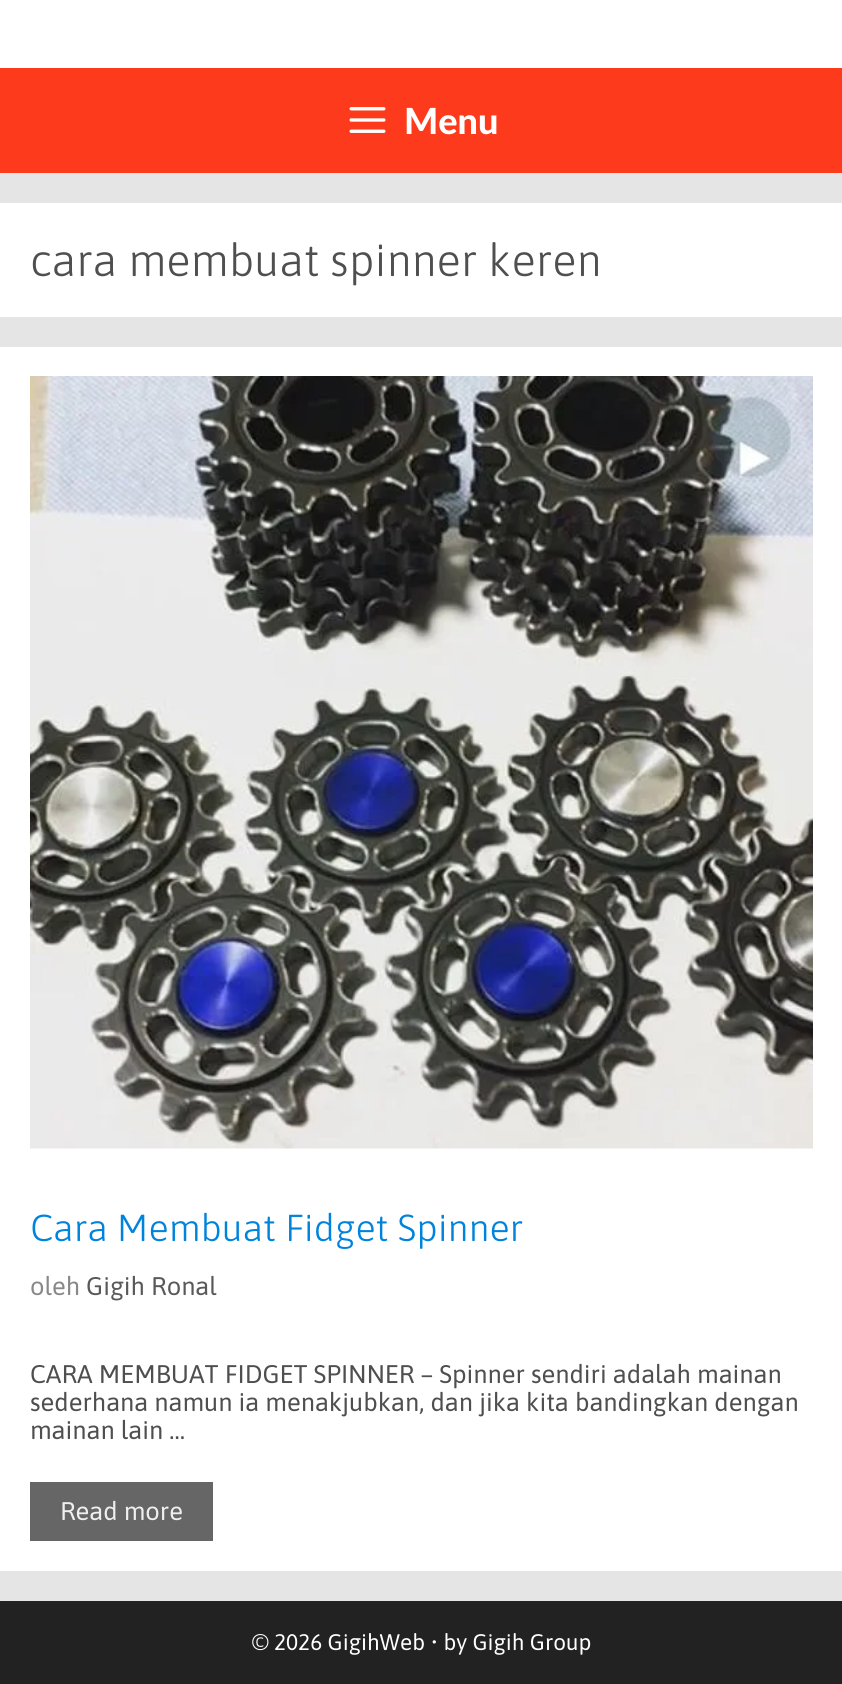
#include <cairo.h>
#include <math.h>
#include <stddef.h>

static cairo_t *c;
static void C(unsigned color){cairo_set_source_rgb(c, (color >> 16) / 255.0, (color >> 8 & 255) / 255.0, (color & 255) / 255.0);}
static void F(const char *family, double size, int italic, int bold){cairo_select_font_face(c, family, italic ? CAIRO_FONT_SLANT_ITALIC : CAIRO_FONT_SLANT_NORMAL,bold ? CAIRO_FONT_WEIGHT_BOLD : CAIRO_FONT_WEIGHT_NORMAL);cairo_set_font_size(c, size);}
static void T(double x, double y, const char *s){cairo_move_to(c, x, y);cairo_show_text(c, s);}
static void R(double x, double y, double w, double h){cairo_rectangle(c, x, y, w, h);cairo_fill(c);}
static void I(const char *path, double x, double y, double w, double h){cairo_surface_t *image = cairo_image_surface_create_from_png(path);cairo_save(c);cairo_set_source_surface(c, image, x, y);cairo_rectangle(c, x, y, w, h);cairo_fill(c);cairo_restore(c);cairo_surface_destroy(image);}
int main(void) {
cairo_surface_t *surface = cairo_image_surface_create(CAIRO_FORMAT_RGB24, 842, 1684);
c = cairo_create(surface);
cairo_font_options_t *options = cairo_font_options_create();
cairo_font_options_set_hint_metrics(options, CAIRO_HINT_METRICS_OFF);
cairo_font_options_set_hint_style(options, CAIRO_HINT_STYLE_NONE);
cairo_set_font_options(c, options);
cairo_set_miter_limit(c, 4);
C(0xe5e5e5);
cairo_paint(c);
C(0xffffff);
R(0,0,842,68);
C(0xfd3a1c);
R(0,68,842,105);
I("1.png",349,107,37,26);
F("Lato Black",36,0,0);
C(0xffffff);
T(404,134,"Menu");
R(0,203,842,114);
F("Asap Light",45,0,0);
C(0x4f4f4f);
T(30,276,"cara membuat spinner keren");
C(0xffffff);
R(0,347,842,1224);
I("2.png",30,376,783,773);
F("Asap Light",37.5,0,0);
C(0x0083db);
T(30,1241,"Cara Membuat Fidget Spinner");
F("Asap",25.5,0,0);
C(0x888888);
T(30,1295,"oleh");
C(0x595959);
T(86,1295,"Gigih Ronal");
C(0x4f4f4f);
T(30,1383,"CARA MEMBUAT FIDGET SPINNER – Spinner sendiri adalah mainan");
T(30,1411,"sederhana namun ia menakjubkan, dan jika kita bandingkan dengan");
T(30,1439,"mainan lain …");
C(0x666666);
R(30,1482,183,59);
C(0xefefef);
T(60,1520,"Read more");
C(0x222222);
R(0,1601,842,83);
F("Asap",22.5,0,0);
C(0xffffff);
T(252,1650,"© 2026 GigihWeb • by Gigih Group");
cairo_surface_write_to_png(surface, "o.png");
cairo_font_options_destroy(options);
cairo_destroy(c);
cairo_surface_destroy(surface);
return 0;
}
